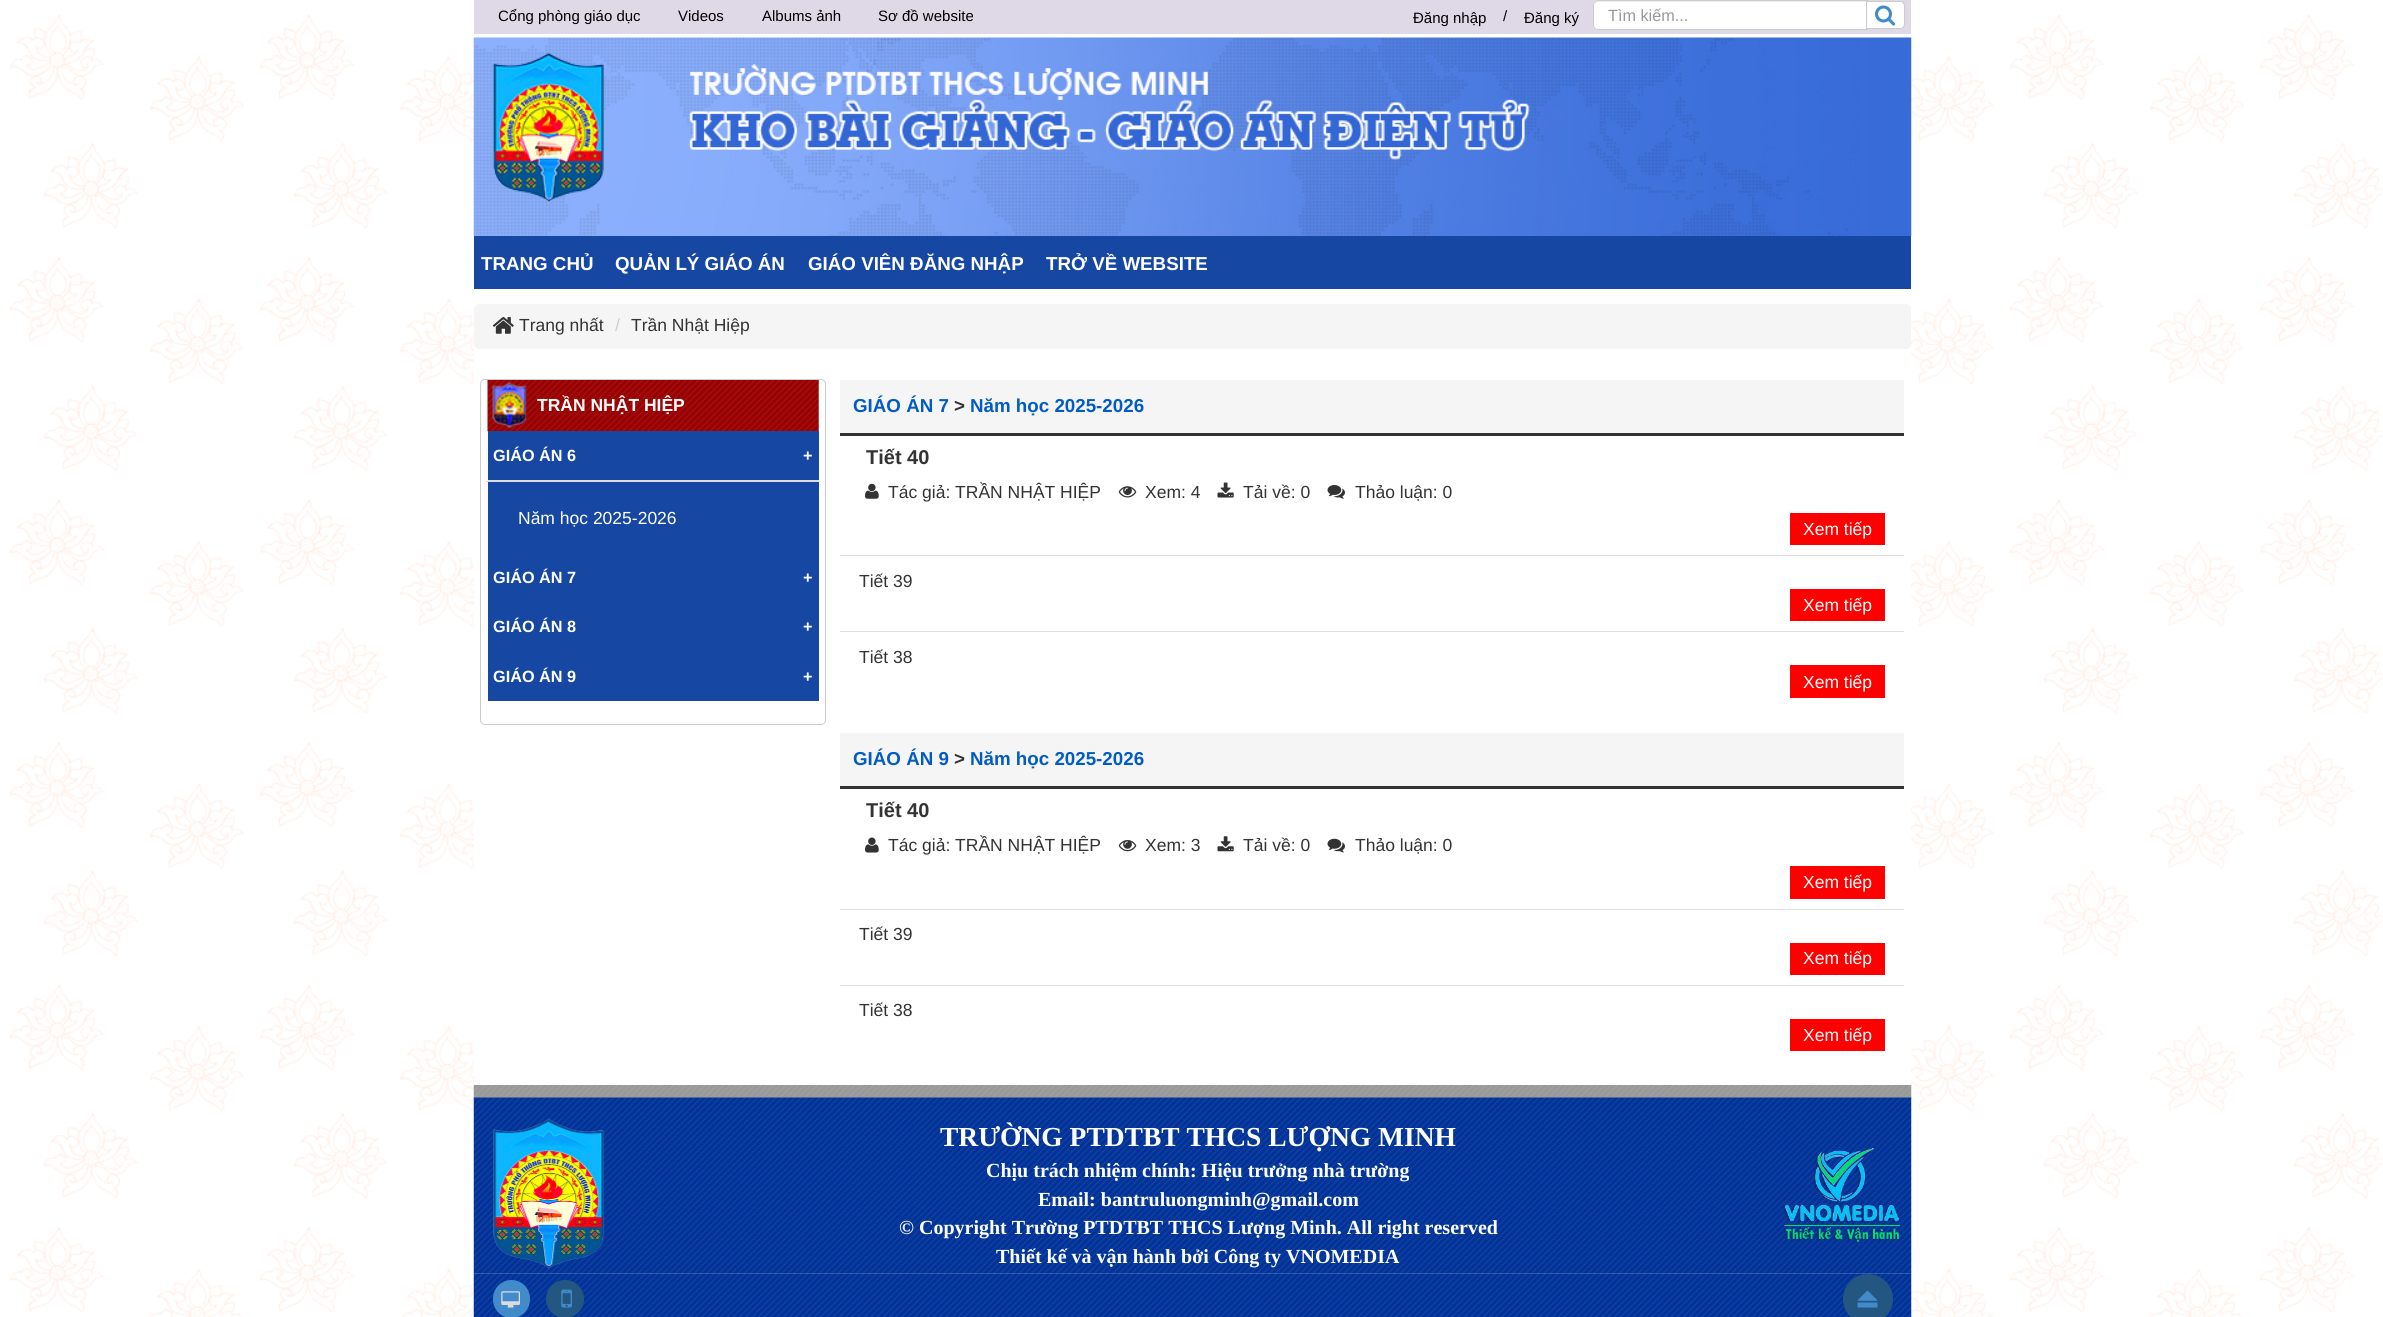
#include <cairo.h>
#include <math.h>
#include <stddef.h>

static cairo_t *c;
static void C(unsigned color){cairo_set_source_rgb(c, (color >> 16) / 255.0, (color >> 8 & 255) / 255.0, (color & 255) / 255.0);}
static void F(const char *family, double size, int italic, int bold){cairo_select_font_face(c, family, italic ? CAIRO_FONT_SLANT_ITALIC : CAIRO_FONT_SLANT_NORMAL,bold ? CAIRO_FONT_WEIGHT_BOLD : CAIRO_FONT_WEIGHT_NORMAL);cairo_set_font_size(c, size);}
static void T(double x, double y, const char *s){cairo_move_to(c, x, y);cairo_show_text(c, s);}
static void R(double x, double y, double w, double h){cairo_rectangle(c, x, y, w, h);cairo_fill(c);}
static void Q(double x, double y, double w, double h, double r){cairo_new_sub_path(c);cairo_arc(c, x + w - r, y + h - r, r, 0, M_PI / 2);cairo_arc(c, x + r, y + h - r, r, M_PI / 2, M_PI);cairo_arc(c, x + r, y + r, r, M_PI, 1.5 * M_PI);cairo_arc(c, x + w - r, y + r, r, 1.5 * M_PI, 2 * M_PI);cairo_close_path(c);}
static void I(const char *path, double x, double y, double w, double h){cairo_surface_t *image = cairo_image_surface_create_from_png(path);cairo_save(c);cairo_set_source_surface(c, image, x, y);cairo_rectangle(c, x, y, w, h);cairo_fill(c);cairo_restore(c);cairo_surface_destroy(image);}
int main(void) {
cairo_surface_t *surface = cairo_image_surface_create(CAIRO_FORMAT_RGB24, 2383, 1317);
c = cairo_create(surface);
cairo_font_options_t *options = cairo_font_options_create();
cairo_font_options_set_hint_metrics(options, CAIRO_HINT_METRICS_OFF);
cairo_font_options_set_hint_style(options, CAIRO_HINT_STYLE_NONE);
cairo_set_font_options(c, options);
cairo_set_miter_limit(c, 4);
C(0xffffff);
cairo_paint(c);
I("1.png",9,14,2374,1303);
C(0xffffff);
R(474,34,1437,1051);
C(0xdfd9e7);
R(474,0,1437,34);
F("Liberation Sans",15,0,0);
C(0x000000);
T(498,21,"Cổng phòng giáo dục");
T(678,21,"Videos");
T(762,21,"Albums ảnh");
T(878,21,"Sơ đồ website");
T(1413,23,"Đăng nhập");
T(1503,21,"/");
T(1524,23,"Đăng ký");
C(0xffffff);
cairo_new_path(c);
cairo_move_to(c,1598,0);
cairo_line_to(c,1868,0);
cairo_line_to(c,1868,30);
cairo_line_to(c,1598,30);
cairo_curve_to(c,1595,30,1593,28,1593,25);
cairo_line_to(c,1593,5);
cairo_curve_to(c,1593,2,1595,0,1598,0);
cairo_close_path(c);
cairo_fill(c);
C(0xececec);
cairo_new_path(c);
cairo_move_to(c,1598,2);
cairo_line_to(c,1866,2);
cairo_line_to(c,1866,1);
cairo_line_to(c,1598,1);
cairo_curve_to(c,1595,1,1594,4,1594,6);
cairo_curve_to(c,1594,4,1596,2,1598,2);
cairo_close_path(c);
cairo_fill(c);
cairo_new_path(c);
cairo_move_to(c,1598,.5);
cairo_line_to(c,1867.5,.5);
cairo_line_to(c,1867.5,29.5);
cairo_line_to(c,1598,29.5);
cairo_curve_to(c,1595.5,29.5,1593.5,27.5,1593.5,25);
cairo_line_to(c,1593.5,5);
cairo_curve_to(c,1593.5,2.5,1595.5,.5,1598,.5);
cairo_close_path(c);
C(0xcccccc);
cairo_set_line_width(c,1);
cairo_stroke(c);
F("Liberation Sans",16.25,0,0);
C(0x999999);
T(1608,21,"Tìm kiếm...");
C(0xffffff);
cairo_new_path(c);
cairo_move_to(c,1866.5,1.5);
cairo_line_to(c,1900,1.5);
cairo_curve_to(c,1902.5,1.5,1904.5,3.5,1904.5,6);
cairo_line_to(c,1904.5,24);
cairo_curve_to(c,1904.5,26.5,1902.5,28.5,1900,28.5);
cairo_line_to(c,1866.5,28.5);
cairo_close_path(c);
cairo_fill_preserve(c);
C(0xcccccc);
cairo_stroke(c);
I("2.png",1875,5,21,21);
I("3.png",473,37,1439,200);
I("4.png",492,52,112,151);
C(0x1647a3);
R(474,236,1437,53);
F("Liberation Sans",18.75,0,1);
C(0xffffff);
T(481,270,"TRANG CHỦ");
T(615,270,"QUẢN LÝ GIÁO ÁN");
T(808,270,"GIÁO VIÊN ĐĂNG NHẬP");
T(1046,270,"TRỞ VỀ WEBSITE");
C(0xf5f5f5);
Q(474,304,1437,45,5);
cairo_fill(c);
I("5.png",492,317,22,17);
F("Liberation Sans",17.5,0,0);
C(0x333333);
T(519,331,"Trang nhất");
C(0xcccccc);
T(615,331,"/");
C(0x333333);
T(631,331,"Trần Nhật Hiệp");
Q(480.5,379.5,345,345,4.5);
C(0xcccccc);
cairo_stroke(c);
I("6.png",487,380,332,52);
I("7.png",492,382,35,46);
F("Liberation Sans",17.5,0,1);
C(0xffffff);
T(537,411,"TRẦN NHẬT HIỆP");
C(0x1647a3);
R(488,431,331,270);
F("Liberation Sans",16.25,0,1);
C(0xffffff);
T(493,461,"GIÁO ÁN 6");
T(803,461,"+");
C(0xdddddd);
R(488,480,331,1);
R(486,481,334,1);
F("Liberation Sans",17.5,0,0);
C(0xffffff);
T(518,524,"Năm học 2025-2026");
F("Liberation Sans",16.25,0,1);
T(493,583,"GIÁO ÁN 7");
T(803,583,"+");
T(493,632,"GIÁO ÁN 8");
T(803,632,"+");
T(493,682,"GIÁO ÁN 9");
T(803,682,"+");
C(0xf5f5f5);
R(840,380,1064,53);
C(0x333333);
R(840,433,1064,3);
F("Liberation Sans",18.75,0,1);
C(0x025cc4);
T(853,412,"GIÁO ÁN 7");
C(0x333333);
T(954,412,">");
C(0x025cc4);
T(970,412,"Năm học 2025-2026");
F("Liberation Sans",20,0,1);
C(0x333333);
T(866,464,"Tiết 40");
I("8.png",865,483,14,16);
F("Liberation Sans",17.5,0,0);
T(888,498,"Tác giả: TRẦN NHẬT HIỆP");
I("9.png",1118,486,19,12);
T(1145,498,"Xem: 4");
I("10.png",1217,482,17,16);
T(1243,498,"Tải về: 0");
I("11.png",1327,485,18,14);
T(1355,498,"Thảo luận: 0");
C(0xff0000);
R(1790,513,95,32);
C(0xffffff);
T(1803,535,"Xem tiếp");
C(0xdddddd);
R(840,555,1064,1);
C(0x333333);
T(859,587,"Tiết 39");
C(0xff0000);
R(1790,589,95,32);
C(0xffffff);
T(1803,611,"Xem tiếp");
C(0xdddddd);
R(840,631,1064,1);
C(0x333333);
T(859,663,"Tiết 38");
C(0xff0000);
R(1790,665,95,33);
C(0xffffff);
T(1803,688,"Xem tiếp");
C(0xf5f5f5);
R(840,733,1064,53);
C(0x333333);
R(840,786,1064,3);
F("Liberation Sans",18.75,0,1);
C(0x025cc4);
T(853,765,"GIÁO ÁN 9");
C(0x333333);
T(954,765,">");
C(0x025cc4);
T(970,765,"Năm học 2025-2026");
F("Liberation Sans",20,0,1);
C(0x333333);
T(866,817,"Tiết 40");
I("12.png",865,837,14,16);
F("Liberation Sans",17.5,0,0);
T(888,851,"Tác giả: TRẦN NHẬT HIỆP");
I("13.png",1118,840,19,12);
T(1145,851,"Xem: 3");
I("14.png",1217,836,17,16);
T(1243,851,"Tải về: 0");
I("15.png",1327,838,18,15);
T(1355,851,"Thảo luận: 0");
C(0xff0000);
R(1790,866,95,33);
C(0xffffff);
T(1803,888,"Xem tiếp");
C(0xdddddd);
R(840,909,1064,1);
C(0x333333);
T(859,940,"Tiết 39");
C(0xff0000);
R(1790,943,95,32);
C(0xffffff);
T(1803,964,"Xem tiếp");
C(0xdddddd);
R(840,985,1064,1);
C(0x333333);
T(859,1016,"Tiết 38");
C(0xff0000);
R(1790,1019,95,32);
C(0xffffff);
T(1803,1041,"Xem tiếp");
I("16.png",473,1085,1439,14);
I("17.png",473,1097,1439,177);
I("18.png",493,1118,112,151);
F("Liberation Serif",27.5,0,1);
T(940,1146,"TRƯỜNG PTDTBT THCS LƯỢNG MINH");
F("Liberation Serif",20,0,1);
T(986,1177,"Chịu trách nhiệm chính: Hiệu trưởng nhà trường");
T(1038,1206,"Email: bantruluongminh@gmail.com");
T(899,1234,"© Copyright Trường PTDTBT THCS Lượng Minh. All right reserved");
T(996,1263,"Thiết kế và vận hành bởi Công ty VNOMEDIA");
I("19.png",1782,1148,118,96);
I("20.png",473,1273,1439,44);
C(0x428bca);
Q(493,1280,37,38,18.5);
cairo_fill(c);
I("21.png",501,1291,19,17);
C(0x245682);
cairo_arc(c,565,1299,19,0,2 * M_PI);
cairo_fill(c);
I("22.png",561,1289,11,19);
cairo_arc(c,1868,1299,25,0,2 * M_PI);
cairo_fill(c);
I("23.png",1857,1290,21,18);
cairo_surface_write_to_png(surface, "o.png");
cairo_font_options_destroy(options);
cairo_destroy(c);
cairo_surface_destroy(surface);
return 0;
}
